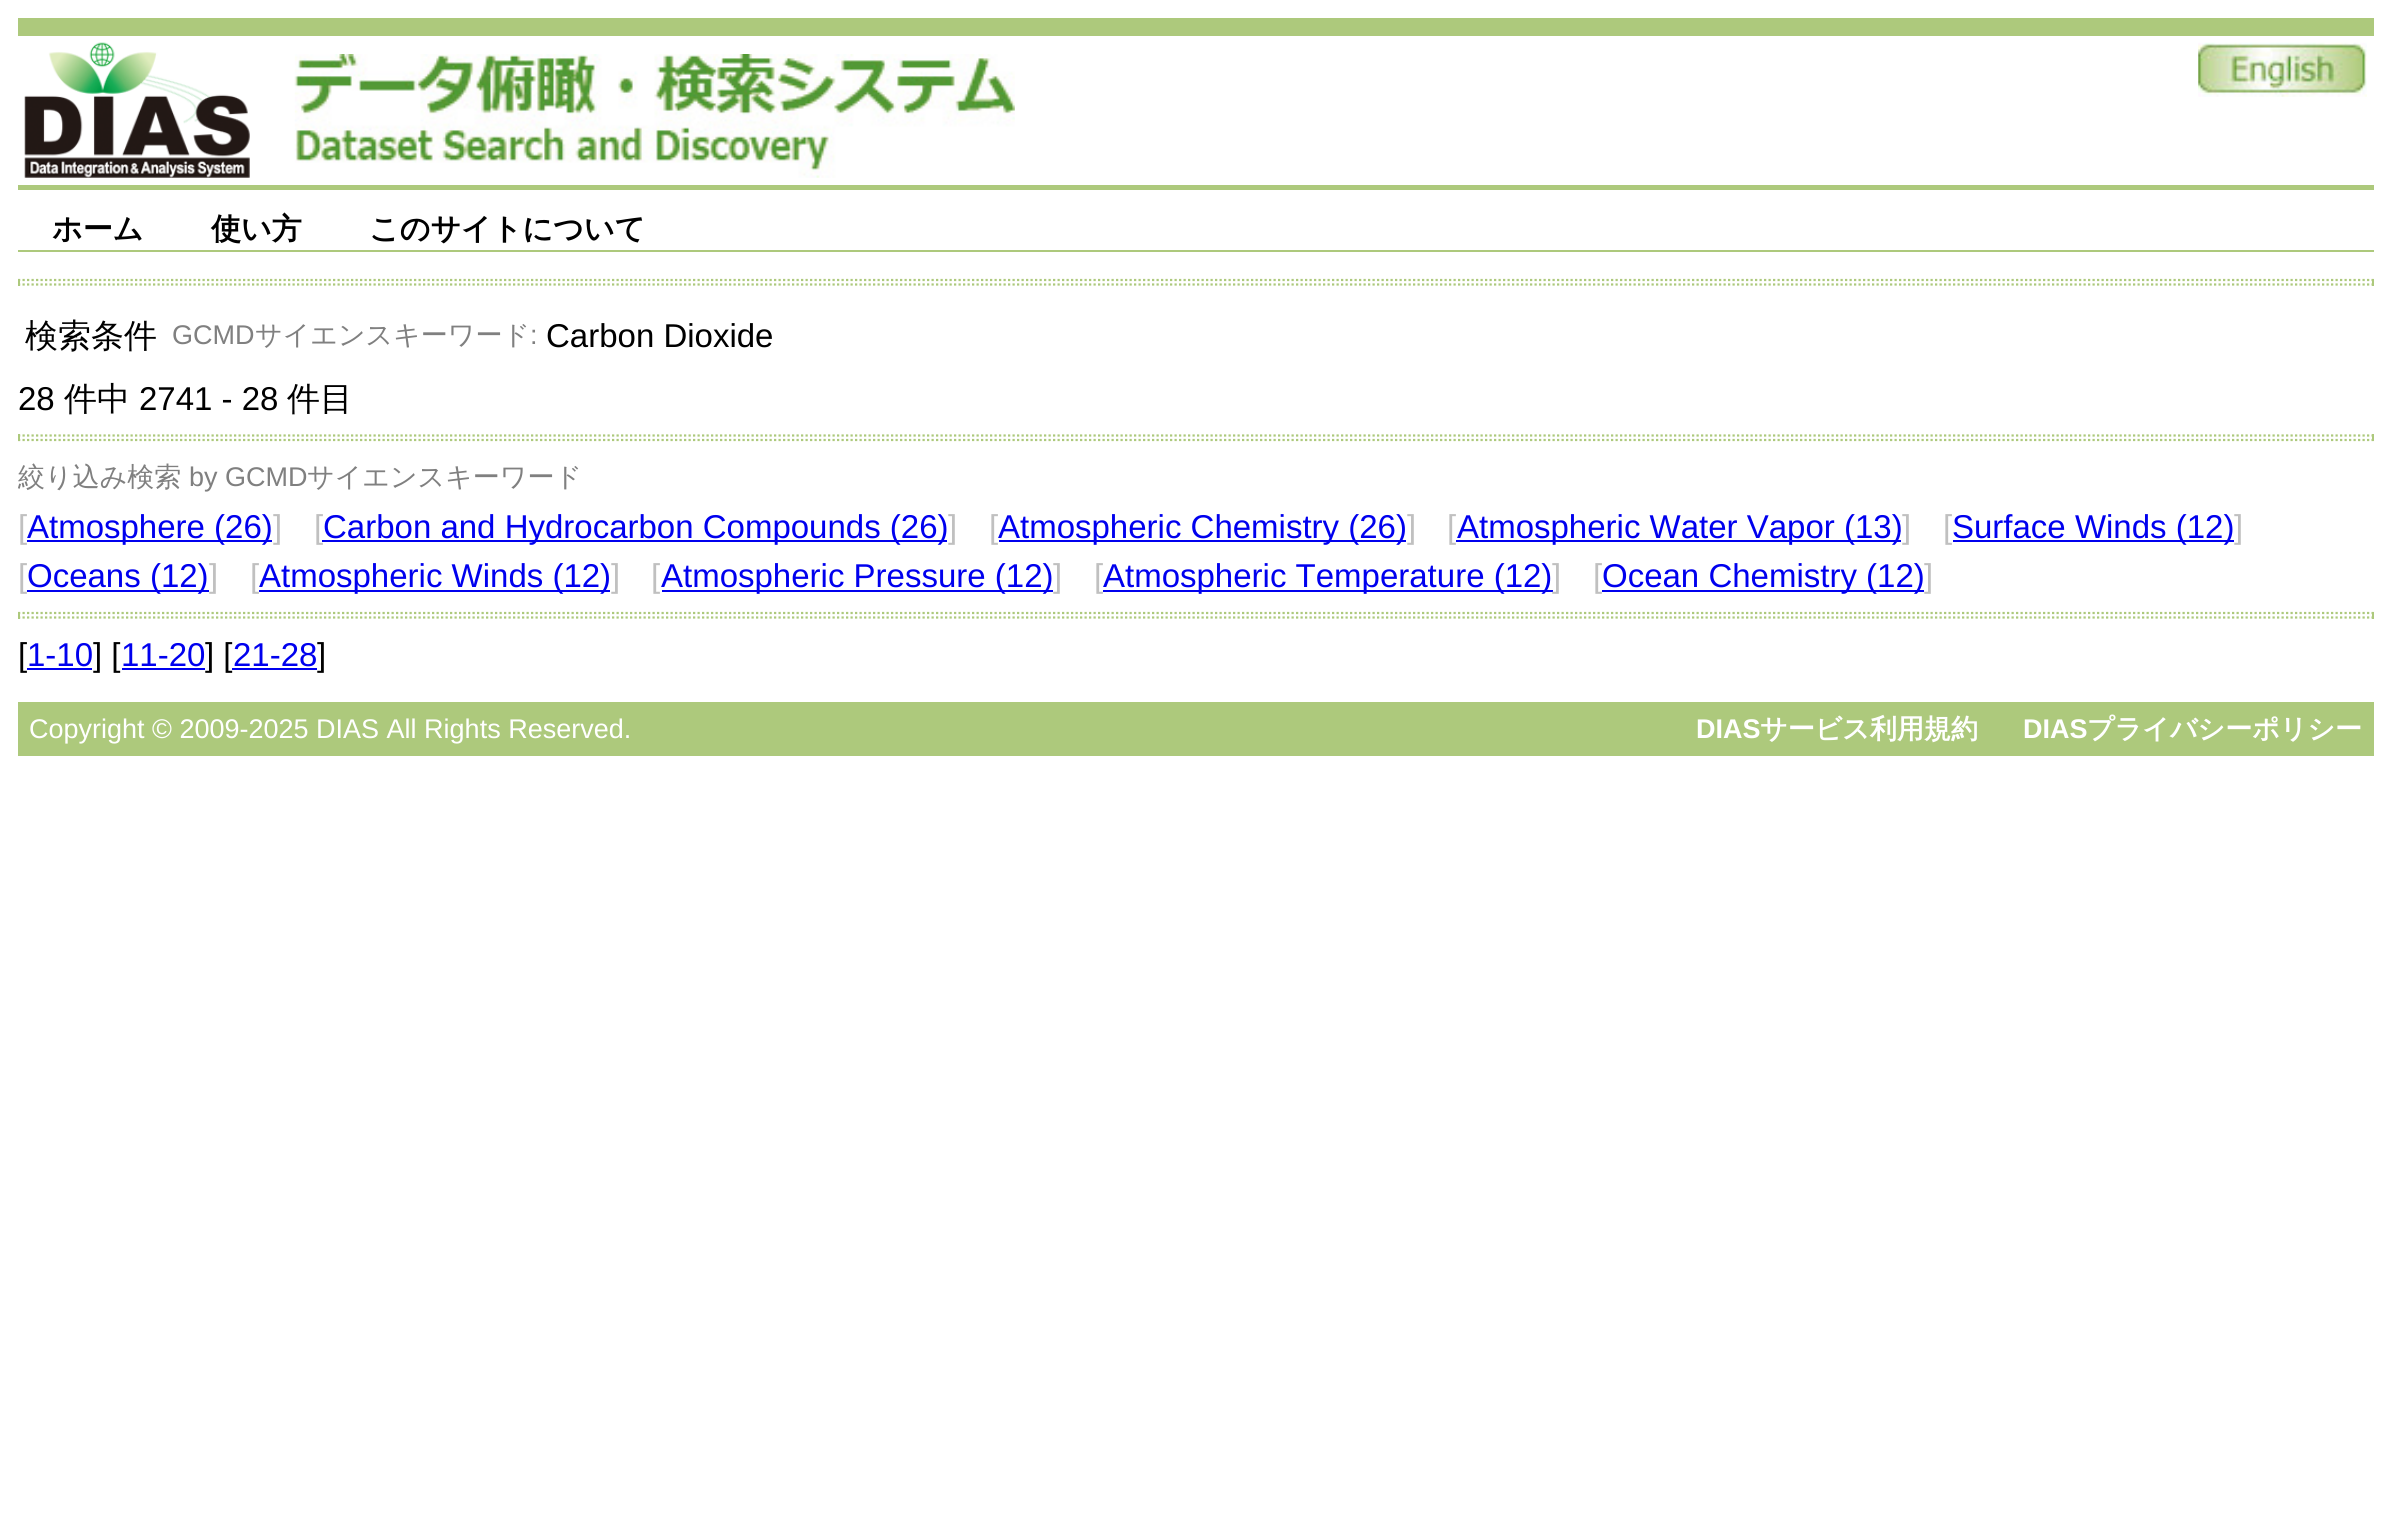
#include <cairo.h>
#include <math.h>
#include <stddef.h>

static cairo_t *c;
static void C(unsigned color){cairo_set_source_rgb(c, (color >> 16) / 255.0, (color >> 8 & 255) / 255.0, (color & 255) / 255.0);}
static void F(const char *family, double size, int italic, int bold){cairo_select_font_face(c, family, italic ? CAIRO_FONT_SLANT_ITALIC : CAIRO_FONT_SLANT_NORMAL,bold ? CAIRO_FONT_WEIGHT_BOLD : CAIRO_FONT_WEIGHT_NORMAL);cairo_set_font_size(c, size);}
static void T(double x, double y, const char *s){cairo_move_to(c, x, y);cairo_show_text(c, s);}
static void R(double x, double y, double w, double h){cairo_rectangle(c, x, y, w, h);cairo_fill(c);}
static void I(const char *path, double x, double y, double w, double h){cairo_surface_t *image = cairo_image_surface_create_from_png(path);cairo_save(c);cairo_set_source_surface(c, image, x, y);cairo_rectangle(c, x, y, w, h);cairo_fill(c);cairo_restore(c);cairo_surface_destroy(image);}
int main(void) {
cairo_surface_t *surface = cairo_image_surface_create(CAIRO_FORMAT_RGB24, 2390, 1529);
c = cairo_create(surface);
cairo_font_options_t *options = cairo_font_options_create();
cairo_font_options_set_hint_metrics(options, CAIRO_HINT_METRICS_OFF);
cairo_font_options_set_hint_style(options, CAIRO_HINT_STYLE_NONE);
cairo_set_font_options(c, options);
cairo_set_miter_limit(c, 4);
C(0xffffff);
cairo_paint(c);
C(0xadc97c);
R(18,18,2356,18);
R(18,185,2356,5);
I("1.png",24,42,226,136);
I("2.png",294,54,721,124);
I("3.png",2198,42,169,55);
R(18,250,2356,2);
F("WenQuanYi Zen Hei",30,0,1);
C(0x000000);
T(52,239,"ホーム");
T(211,239,"使い方");
T(369,239,"このサイトについて");
cairo_new_path(c);
cairo_move_to(c,18,280);
cairo_line_to(c,2374,280);
C(0xadc97c);
cairo_set_line_width(c,2.2);
cairo_set_dash(c,(double[]){2.25,2.25},2,0);
cairo_stroke(c);
R(2372,279,2,7);
cairo_new_path(c);
cairo_move_to(c,18,284.5);
cairo_line_to(c,2374,284.5);
cairo_stroke(c);
R(18,279,2,7);
F("WenQuanYi Zen Hei Medium",33,0,0);
C(0x000000);
T(25,347,"検索条件");
F("Liberation Sans",27,0,0);
C(0x808080);
T(172,344,"GCMD");
F("WenQuanYi Zen Hei Medium",27,0,0);
T(255,344,"サイエンスキーワード");
F("Liberation Sans",27,0,0);
T(530,344,":");
F("Liberation Sans",33,0,0);
C(0x000000);
T(546,347,"Carbon Dioxide");
T(18,410,"28");
F("WenQuanYi Zen Hei Medium",33,0,0);
T(64,410,"件中");
F("Liberation Sans",33,0,0);
T(139,410,"2741 - 28");
F("WenQuanYi Zen Hei Medium",33,0,0);
T(287,410,"件目");
cairo_new_path(c);
cairo_move_to(c,18,435.5);
cairo_line_to(c,2374,435.5);
C(0xadc97c);
cairo_stroke(c);
R(2372,434,2,7);
cairo_new_path(c);
cairo_move_to(c,18,440);
cairo_line_to(c,2374,440);
cairo_stroke(c);
R(18,434,2,7);
F("WenQuanYi Zen Hei Medium",27,0,0);
C(0x808080);
T(18,486,"絞り込み検索");
F("Liberation Sans",27,0,0);
T(189,486,"by GCMD");
F("WenQuanYi Zen Hei Medium",27,0,0);
T(307,486,"サイエンスキーワード");
F("Liberation Sans",33,0,0);
C(0xc0c0c0);
T(18,538,"[");
C(0x0000ee);
R(27,540,245,2);
T(27,538,"Atmosphere (26)");
C(0xc0c0c0);
T(273,538,"]");
T(314,538,"[");
C(0x0000ee);
R(322,540,625,2);
T(323,538,"Carbon and Hydrocarbon Compounds (26)");
C(0xc0c0c0);
T(948,538,"]");
T(989,538,"[");
C(0x0000ee);
R(999,540,407,2);
T(998,538,"Atmospheric Chemistry (26)");
C(0xc0c0c0);
T(1407,538,"]");
T(1447,538,"[");
C(0x0000ee);
R(1456,540,445,2);
T(1457,538,"Atmospheric Water Vapor (13)");
C(0xc0c0c0);
T(1902,538,"]");
T(1943,538,"[");
C(0x0000ee);
R(1953,540,281,2);
T(1952,538,"Surface Winds (12)");
C(0xc0c0c0);
T(2234,538,"]");
T(18,587,"[");
C(0x0000ee);
R(27,590,182,2);
T(27,587,"Oceans (12)");
C(0xc0c0c0);
T(209,587,"]");
T(250,587,"[");
C(0x0000ee);
R(259,590,351,2);
T(259,587,"Atmospheric Winds (12)");
C(0xc0c0c0);
T(611,587,"]");
T(651,587,"[");
C(0x0000ee);
R(662,590,391,2);
T(661,587,"Atmospheric Pressure (12)");
C(0xc0c0c0);
T(1053,587,"]");
T(1094,587,"[");
C(0x0000ee);
R(1103,590,450,2);
T(1103,587,"Atmospheric Temperature (12)");
C(0xc0c0c0);
T(1552,587,"]");
T(1593,587,"[");
C(0x0000ee);
R(1602,590,322,2);
T(1602,587,"Ocean Chemistry (12)");
C(0xc0c0c0);
T(1924,587,"]");
cairo_new_path(c);
cairo_move_to(c,18,613);
cairo_line_to(c,2374,613);
C(0xadc97c);
cairo_stroke(c);
R(2372,612,2,7);
cairo_new_path(c);
cairo_move_to(c,18,617.5);
cairo_line_to(c,2374,617.5);
cairo_stroke(c);
R(18,612,2,7);
C(0x000000);
T(18,666,"[");
C(0x0000ee);
T(27,666,"1-10");
R(27,668,65,2);
C(0x000000);
T(93,666,"] [");
C(0x0000ee);
T(121,666,"11-20");
R(122,668,83,2);
C(0x000000);
T(205,666,"] [");
C(0x0000ee);
T(233,666,"21-28");
R(232,668,85,2);
C(0x000000);
T(317,666,"]");
C(0xadc97c);
R(18,702,2356,54);
F("Liberation Sans",27,0,0);
C(0xffffff);
T(29,738,"Copyright © 2009-2025 DIAS All Rights Reserved.");
F("Liberation Sans",27,0,1);
T(1696,738,"DIAS");
F("WenQuanYi Zen Hei",27,0,1);
T(1760,738,"サービス利用規約");
F("Liberation Sans",27,0,1);
T(2023,738,"DIAS");
F("WenQuanYi Zen Hei",27,0,1);
T(2087,738,"プライバシーポリシー");
cairo_surface_write_to_png(surface, "o.png");
cairo_font_options_destroy(options);
cairo_destroy(c);
cairo_surface_destroy(surface);
return 0;
}
